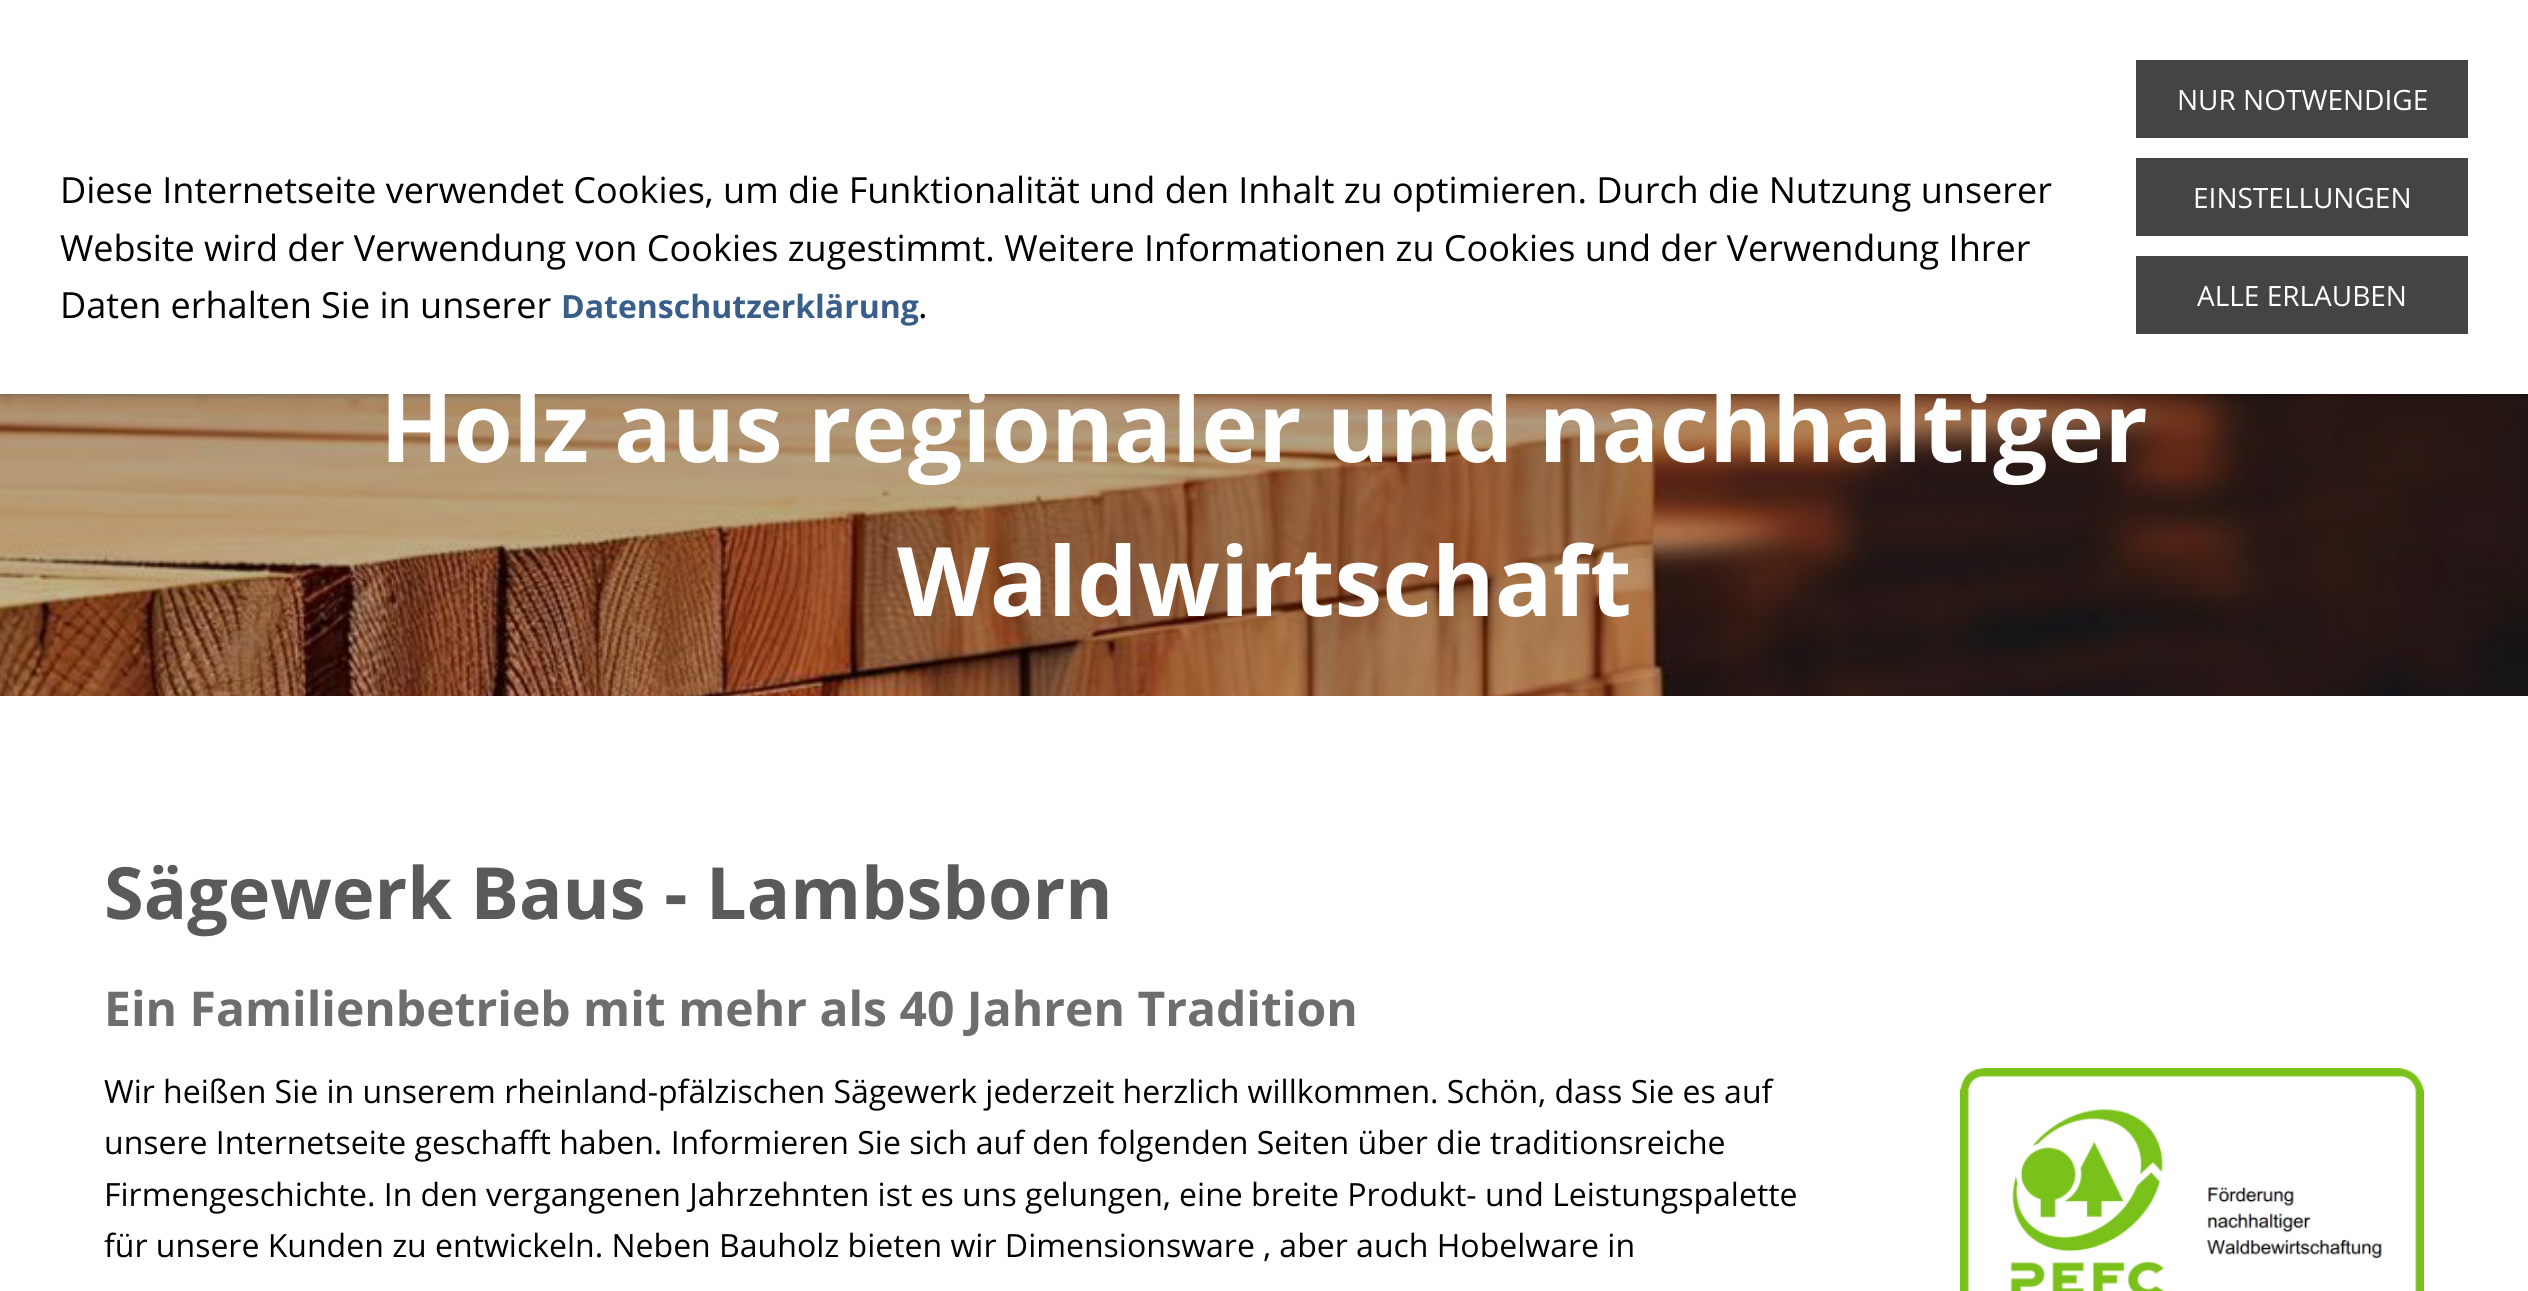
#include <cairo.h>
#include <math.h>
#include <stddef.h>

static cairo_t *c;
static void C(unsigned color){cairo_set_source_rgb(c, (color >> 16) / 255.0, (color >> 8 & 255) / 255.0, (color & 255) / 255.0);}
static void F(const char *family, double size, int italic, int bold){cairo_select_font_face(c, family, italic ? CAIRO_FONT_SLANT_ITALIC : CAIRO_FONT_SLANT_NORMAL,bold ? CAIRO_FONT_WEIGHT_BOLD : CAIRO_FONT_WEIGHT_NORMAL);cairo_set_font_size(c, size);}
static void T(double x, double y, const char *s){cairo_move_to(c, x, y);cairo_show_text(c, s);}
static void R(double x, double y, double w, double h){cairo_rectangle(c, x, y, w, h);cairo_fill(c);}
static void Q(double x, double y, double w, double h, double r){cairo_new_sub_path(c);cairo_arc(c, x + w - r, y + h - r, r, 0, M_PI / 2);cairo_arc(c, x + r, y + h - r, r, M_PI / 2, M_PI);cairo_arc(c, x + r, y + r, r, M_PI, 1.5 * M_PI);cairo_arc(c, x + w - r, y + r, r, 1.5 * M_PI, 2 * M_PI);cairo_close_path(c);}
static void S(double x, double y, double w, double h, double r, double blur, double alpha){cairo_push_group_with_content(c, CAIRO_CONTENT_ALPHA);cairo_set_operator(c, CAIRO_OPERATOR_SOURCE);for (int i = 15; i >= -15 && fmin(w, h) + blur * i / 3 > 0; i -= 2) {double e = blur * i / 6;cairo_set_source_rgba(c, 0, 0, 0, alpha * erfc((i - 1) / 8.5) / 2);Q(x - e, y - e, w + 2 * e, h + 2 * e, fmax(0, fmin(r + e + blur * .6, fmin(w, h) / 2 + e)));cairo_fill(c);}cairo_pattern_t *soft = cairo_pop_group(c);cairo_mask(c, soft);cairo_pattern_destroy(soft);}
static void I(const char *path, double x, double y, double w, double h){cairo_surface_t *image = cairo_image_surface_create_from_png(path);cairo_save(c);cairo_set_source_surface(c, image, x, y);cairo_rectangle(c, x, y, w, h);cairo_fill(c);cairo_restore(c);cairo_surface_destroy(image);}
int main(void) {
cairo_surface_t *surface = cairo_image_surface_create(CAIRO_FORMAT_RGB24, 2528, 1291);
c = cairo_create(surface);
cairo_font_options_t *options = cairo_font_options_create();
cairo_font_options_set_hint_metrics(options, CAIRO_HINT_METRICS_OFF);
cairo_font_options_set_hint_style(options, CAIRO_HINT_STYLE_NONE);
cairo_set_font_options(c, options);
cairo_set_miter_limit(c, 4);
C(0xffffff);
cairo_paint(c);
I("1.png",0,394,2528,302);
C(0x000000);
S(0,0,2528,394,0,5,.4);
C(0xffffff);
R(0,0,2528,394);
F("Open Sans",36,0,0);
C(0x000000);
T(60,203,"Diese Internetseite verwendet Cookies, um die Funktionalität und den Inhalt zu optimieren. Durch die Nutzung unserer");
T(60,261,"Website wird der Verwendung von Cookies zugestimmt. Weitere Informationen zu Cookies und der Verwendung Ihrer");
T(60,318,"Daten erhalten Sie in unserer");
F("Open Sans",32,0,1);
C(0x395e8a);
T(561,318,"Datenschutzerklärung");
F("Open Sans",36,0,0);
C(0x000000);
T(918,318,".");
C(0x444444);
R(2136,60,332,78);
F("Open Sans",28,0,0);
C(0xffffff);
T(2177,110,"NUR NOTWENDIGE");
C(0x444444);
R(2136,158,332,78);
C(0xffffff);
T(2193,208,"EINSTELLUNGEN");
C(0x444444);
R(2136,256,332,78);
C(0xffffff);
T(2197,306,"ALLE ERLAUBEN");
F("Open Sans",96,0,1);
T(380,462,"Holz aus regionaler und nachhaltiger");
T(897,616,"Waldwirtschaft");
F("Open Sans",72,0,1);
C(0x5a5a5a);
T(104,919,"Sägewerk Baus - Lambsborn");
F("Open Sans",48,0,1);
C(0x6e6e6e);
T(104,1026,"Ein Familienbetrieb mit mehr als 40 Jahren Tradition");
F("Open Sans",32,0,0);
C(0x000000);
T(104,1103,"Wir heißen Sie in unserem rheinland-pfälzischen Sägewerk jederzeit herzlich willkommen. Schön, dass Sie es auf");
T(104,1154,"unsere Internetseite geschafft haben. Informieren Sie sich auf den folgenden Seiten über die traditionsreiche");
T(104,1206,"Firmengeschichte. In den vergangenen Jahrzehnten ist es uns gelungen, eine breite Produkt- und Leistungspalette");
T(104,1257,"für unsere Kunden zu entwickeln. Neben Bauholz bieten wir Dimensionsware , aber auch Hobelware in");
I("2.png",1960,1068,464,223);
cairo_surface_write_to_png(surface, "o.png");
cairo_font_options_destroy(options);
cairo_destroy(c);
cairo_surface_destroy(surface);
return 0;
}
